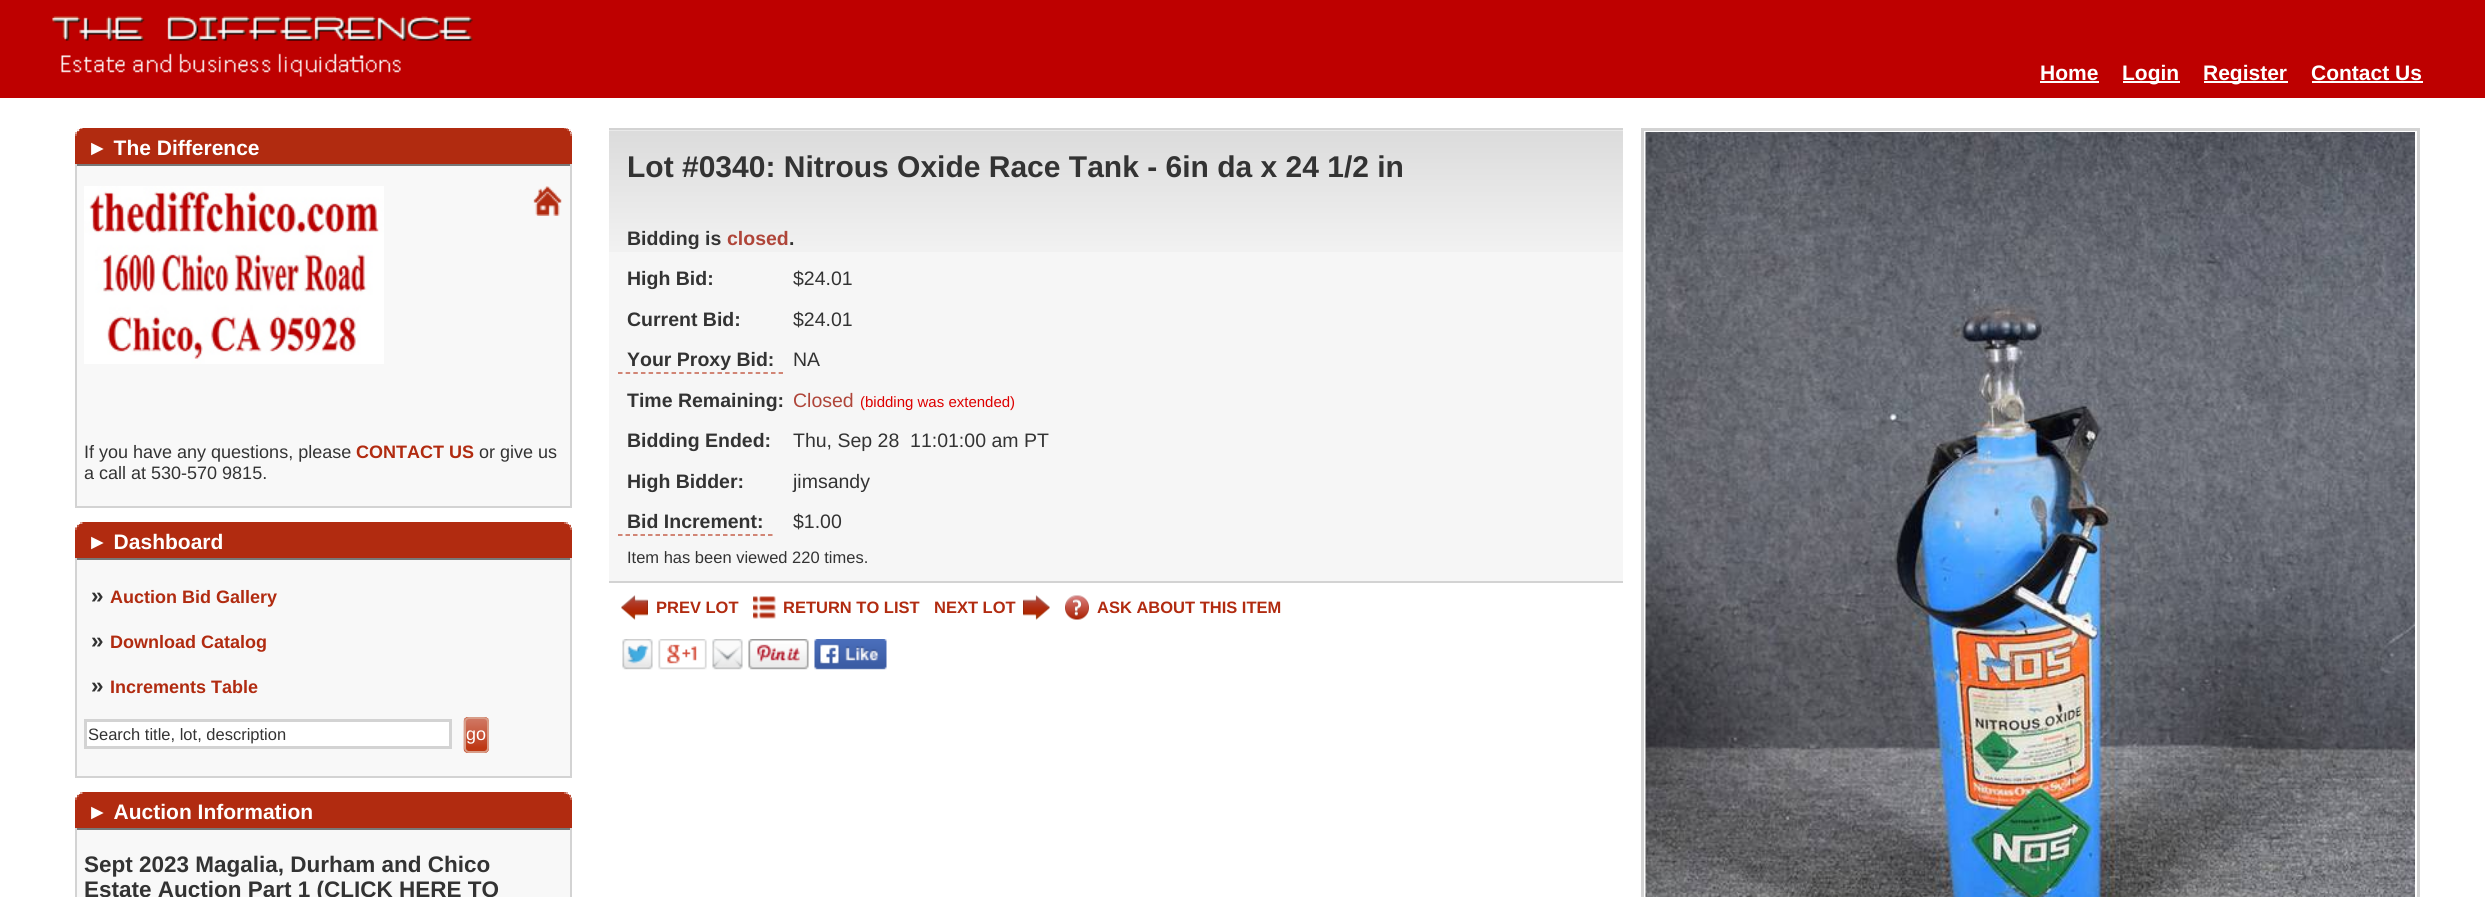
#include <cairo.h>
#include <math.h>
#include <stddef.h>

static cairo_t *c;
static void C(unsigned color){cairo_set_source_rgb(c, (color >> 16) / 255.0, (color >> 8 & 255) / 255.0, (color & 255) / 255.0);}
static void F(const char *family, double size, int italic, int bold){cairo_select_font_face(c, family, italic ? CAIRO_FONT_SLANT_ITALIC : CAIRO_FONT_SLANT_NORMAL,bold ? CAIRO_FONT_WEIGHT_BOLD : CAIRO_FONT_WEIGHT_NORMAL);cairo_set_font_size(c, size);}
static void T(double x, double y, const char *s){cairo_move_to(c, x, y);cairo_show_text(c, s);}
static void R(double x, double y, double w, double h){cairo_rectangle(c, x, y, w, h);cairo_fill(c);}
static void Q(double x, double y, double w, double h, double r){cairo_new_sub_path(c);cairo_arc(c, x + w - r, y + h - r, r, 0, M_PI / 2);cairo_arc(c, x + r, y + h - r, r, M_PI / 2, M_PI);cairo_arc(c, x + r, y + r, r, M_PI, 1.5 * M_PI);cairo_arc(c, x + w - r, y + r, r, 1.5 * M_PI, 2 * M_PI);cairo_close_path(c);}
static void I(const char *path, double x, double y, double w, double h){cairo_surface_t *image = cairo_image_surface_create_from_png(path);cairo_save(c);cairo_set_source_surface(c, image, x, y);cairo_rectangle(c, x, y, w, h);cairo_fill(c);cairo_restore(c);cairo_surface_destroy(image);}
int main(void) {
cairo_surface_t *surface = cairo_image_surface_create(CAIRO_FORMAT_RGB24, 2485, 897);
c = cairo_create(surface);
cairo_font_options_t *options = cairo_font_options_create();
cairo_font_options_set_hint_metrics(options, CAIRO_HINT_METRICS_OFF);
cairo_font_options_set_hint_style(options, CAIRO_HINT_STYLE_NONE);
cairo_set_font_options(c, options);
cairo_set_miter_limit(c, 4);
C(0xffffff);
cairo_paint(c);
C(0xbe0000);
R(0,0,2485,98);
I("1.png",52,16,421,61);
F("Liberation Sans",21,0,1);
C(0xffffff);
T(2040,80,"Home");
R(2040,81,59,2);
R(2123,81,57,2);
T(2122,80,"Login");
R(2204,81,84,2);
T(2203,80,"Register");
T(2311,80,"Contact Us");
R(2312,81,111,2);
C(0xc4604b);
R(80,128,487,1);
C(0xdda398);
R(566,128,2,1);
R(80,128,2,1);
C(0xb12b10);
R(83,128,481,1);
C(0xbf533d);
R(77,129,493,2);
C(0xf7e9e7);
R(569,129,2,2);
R(77,129,2,2);
C(0xb12b10);
R(80,129,487,2);
R(77,131,493,1);
C(0xbf533d);
R(569,131,2,1);
R(77,131,2,1);
C(0xb12b10);
R(75,132,497,4);
C(0xdda398);
R(570,132,2,2);
R(75,132,2,2);
C(0xc4604b);
R(570,134,2,2);
R(75,134,2,2);
C(0xb12b10);
R(75,136,497,28);
C(0xffffff);
T(87,155,"► The Difference");
C(0xf8f8f8);
R(77,166,493,340);
C(0x787878);
R(75,164,497,2);
C(0xd3d3d3);
R(570,164,2,343);
R(75,506,497,2);
R(75,164,2,343);
I("2.png",84,186,300,178);
I("3.png",533,186,29,30);
F("Liberation Sans",18,0,0);
C(0x333333);
T(84,458,"If you have any questions, please");
F("Liberation Sans",18,0,1);
C(0xb12b10);
T(356,458,"CONTACT US");
F("Liberation Sans",18,0,0);
C(0x333333);
T(479,458,"or give us");
T(84,479,"a call at 530-570 9815.");
C(0xc4604b);
R(80,522,487,2);
C(0xdda398);
R(566,522,2,2);
R(80,522,2,2);
C(0xb12b10);
R(83,522,481,2);
C(0xbf533d);
R(77,524,493,1);
C(0xf7e9e7);
R(569,524,2,1);
R(77,524,2,1);
C(0xb12b10);
R(80,524,487,1);
R(77,525,493,2);
C(0xbf533d);
R(569,525,2,2);
R(77,525,2,2);
C(0xb12b10);
R(75,527,497,3);
C(0xdda398);
R(570,527,2,1);
R(75,527,2,1);
C(0xc4604b);
R(570,528,2,2);
R(75,528,2,2);
C(0xb12b10);
R(75,530,497,28);
F("Liberation Sans",21,0,1);
C(0xffffff);
T(87,549,"► Dashboard");
C(0xf8f8f8);
R(77,560,493,216);
C(0x787878);
R(75,558,497,2);
C(0xd3d3d3);
R(570,558,2,219);
R(75,776,497,2);
R(75,558,2,219);
F("Liberation Sans",22.5,0,1);
C(0x333333);
T(91,603,"»");
F("Liberation Sans",18,0,1);
C(0xb12b10);
T(110,603,"Auction Bid Gallery");
F("Liberation Sans",22.5,0,1);
C(0x333333);
T(91,648,"»");
F("Liberation Sans",18,0,1);
C(0xb12b10);
T(110,648,"Download Catalog");
F("Liberation Sans",22.5,0,1);
C(0x333333);
T(91,693,"»");
F("Liberation Sans",18,0,1);
C(0xb12b10);
T(110,693,"Increments Table");
C(0xffffff);
cairo_rectangle(c,85.5,720.5,365,27);
cairo_fill_preserve(c);
C(0xd3d3d3);
cairo_set_line_width(c,3);
cairo_stroke(c);
F("Liberation Sans",16.5,0,0);
C(0x333333);
T(88,740,"Search title, lot, description");
I("4.png",463,717,26,36);
Q(465,718,23,34,4);
C(0xd89d88);
cairo_set_line_width(c,2);
cairo_stroke(c);
F("Liberation Sans",18,0,0);
C(0xffffff);
T(466,740,"go");
C(0xc4604b);
R(80,792,487,2);
C(0xdda398);
R(566,792,2,2);
R(80,792,2,2);
C(0xb12b10);
R(83,792,481,2);
C(0xbf533d);
R(77,794,493,1);
C(0xf7e9e7);
R(569,794,2,1);
R(77,794,2,1);
C(0xb12b10);
R(80,794,487,1);
R(77,795,493,2);
C(0xbf533d);
R(569,795,2,2);
R(77,795,2,2);
C(0xb12b10);
R(75,797,497,3);
C(0xdda398);
R(570,797,2,1);
R(75,797,2,1);
C(0xc4604b);
R(570,798,2,2);
R(75,798,2,2);
C(0xb12b10);
R(75,800,497,28);
F("Liberation Sans",21,0,1);
C(0xffffff);
T(87,819,"► Auction Information");
C(0xf8f8f8);
R(77,830,493,67);
C(0x787878);
R(75,828,497,2);
C(0xd3d3d3);
R(570,828,2,69);
R(75,828,2,69);
F("Liberation Sans",22.5,0,1);
C(0x333333);
T(84,872,"Sept 2023 Magalia, Durham and Chico");
T(84,897,"Estate Auction Part 1 (CLICK HERE TO");
C(0xf6f6f6);
R(609,130,1014,451);
I("5.png",609,130,1014,122);
C(0xd3d3d3);
R(609,128,1014,2);
R(609,581,1014,2);
F("Liberation Sans",30,0,1);
C(0x333333);
T(627,177,"Lot #0340: Nitrous Oxide Race Tank - 6in da x 24 1/2 in");
F("Liberation Sans",19.5,0,1);
T(627,245,"Bidding is");
C(0xaf4539);
T(727,245,"closed");
C(0x333333);
T(789,245,".");
T(627,285,"High Bid:");
F("Liberation Sans",19.5,0,0);
T(793,285,"$24.01");
F("Liberation Sans",19.5,0,1);
T(627,326,"Current Bid:");
F("Liberation Sans",19.5,0,0);
T(793,326,"$24.01");
F("Liberation Sans",19.5,0,1);
T(627,366,"Your Proxy Bid:");
cairo_new_path(c);
cairo_move_to(c,618,373);
cairo_line_to(c,783,373);
C(0xc45f4b);
cairo_set_line_width(c,1.5);
cairo_set_dash(c,(double[]){4.5,3.15},2,0);
cairo_stroke(c);
F("Liberation Sans",19.5,0,0);
C(0x333333);
T(793,366,"NA");
F("Liberation Sans",19.5,0,1);
T(627,407,"Time Remaining:");
F("Liberation Sans",19.5,0,0);
C(0xaf4539);
T(793,407,"Closed");
F("Liberation Sans",15,0,0);
C(0xdd0000);
T(860,407,"(bidding was extended)");
F("Liberation Sans",19.5,0,1);
C(0x333333);
T(627,447,"Bidding Ended:");
F("Liberation Sans",19.5,0,0);
T(793,447,"Thu, Sep 28  11:01:00 am PT");
F("Liberation Sans",19.5,0,1);
T(627,488,"High Bidder:");
F("Liberation Sans",19.5,0,0);
T(793,488,"jimsandy");
F("Liberation Sans",19.5,0,1);
T(627,528,"Bid Increment:");
cairo_new_path(c);
cairo_move_to(c,618,535);
cairo_line_to(c,772.5,535);
C(0xc45f4b);
cairo_set_dash(c,(double[]){4.5,3},2,0);
cairo_stroke(c);
F("Liberation Sans",19.5,0,0);
C(0x333333);
T(793,528,"$1.00");
F("Liberation Sans",16.5,0,0);
T(627,563,"Item has been viewed 220 times.");
I("6.png",621,595,27,25);
F("Liberation Sans",16.5,0,1);
C(0xb12b10);
T(656,613,"PREV LOT");
I("7.png",753,596,23,23);
T(783,613,"RETURN TO LIST");
T(934,613,"NEXT LOT");
I("8.png",1023,595,27,25);
I("9.png",1065,595,24,25);
T(1097,613,"ASK ABOUT THIS ITEM");
I("10.png",622,639,265,31);
cairo_rectangle(c,1642.5,129.5,776,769);
C(0xd3d3d3);
cairo_set_line_width(c,3);
cairo_set_dash(c,NULL,0,0);
cairo_stroke(c);
I("11.png",1645,132,770,765);
cairo_surface_write_to_png(surface, "o.png");
cairo_font_options_destroy(options);
cairo_destroy(c);
cairo_surface_destroy(surface);
return 0;
}
